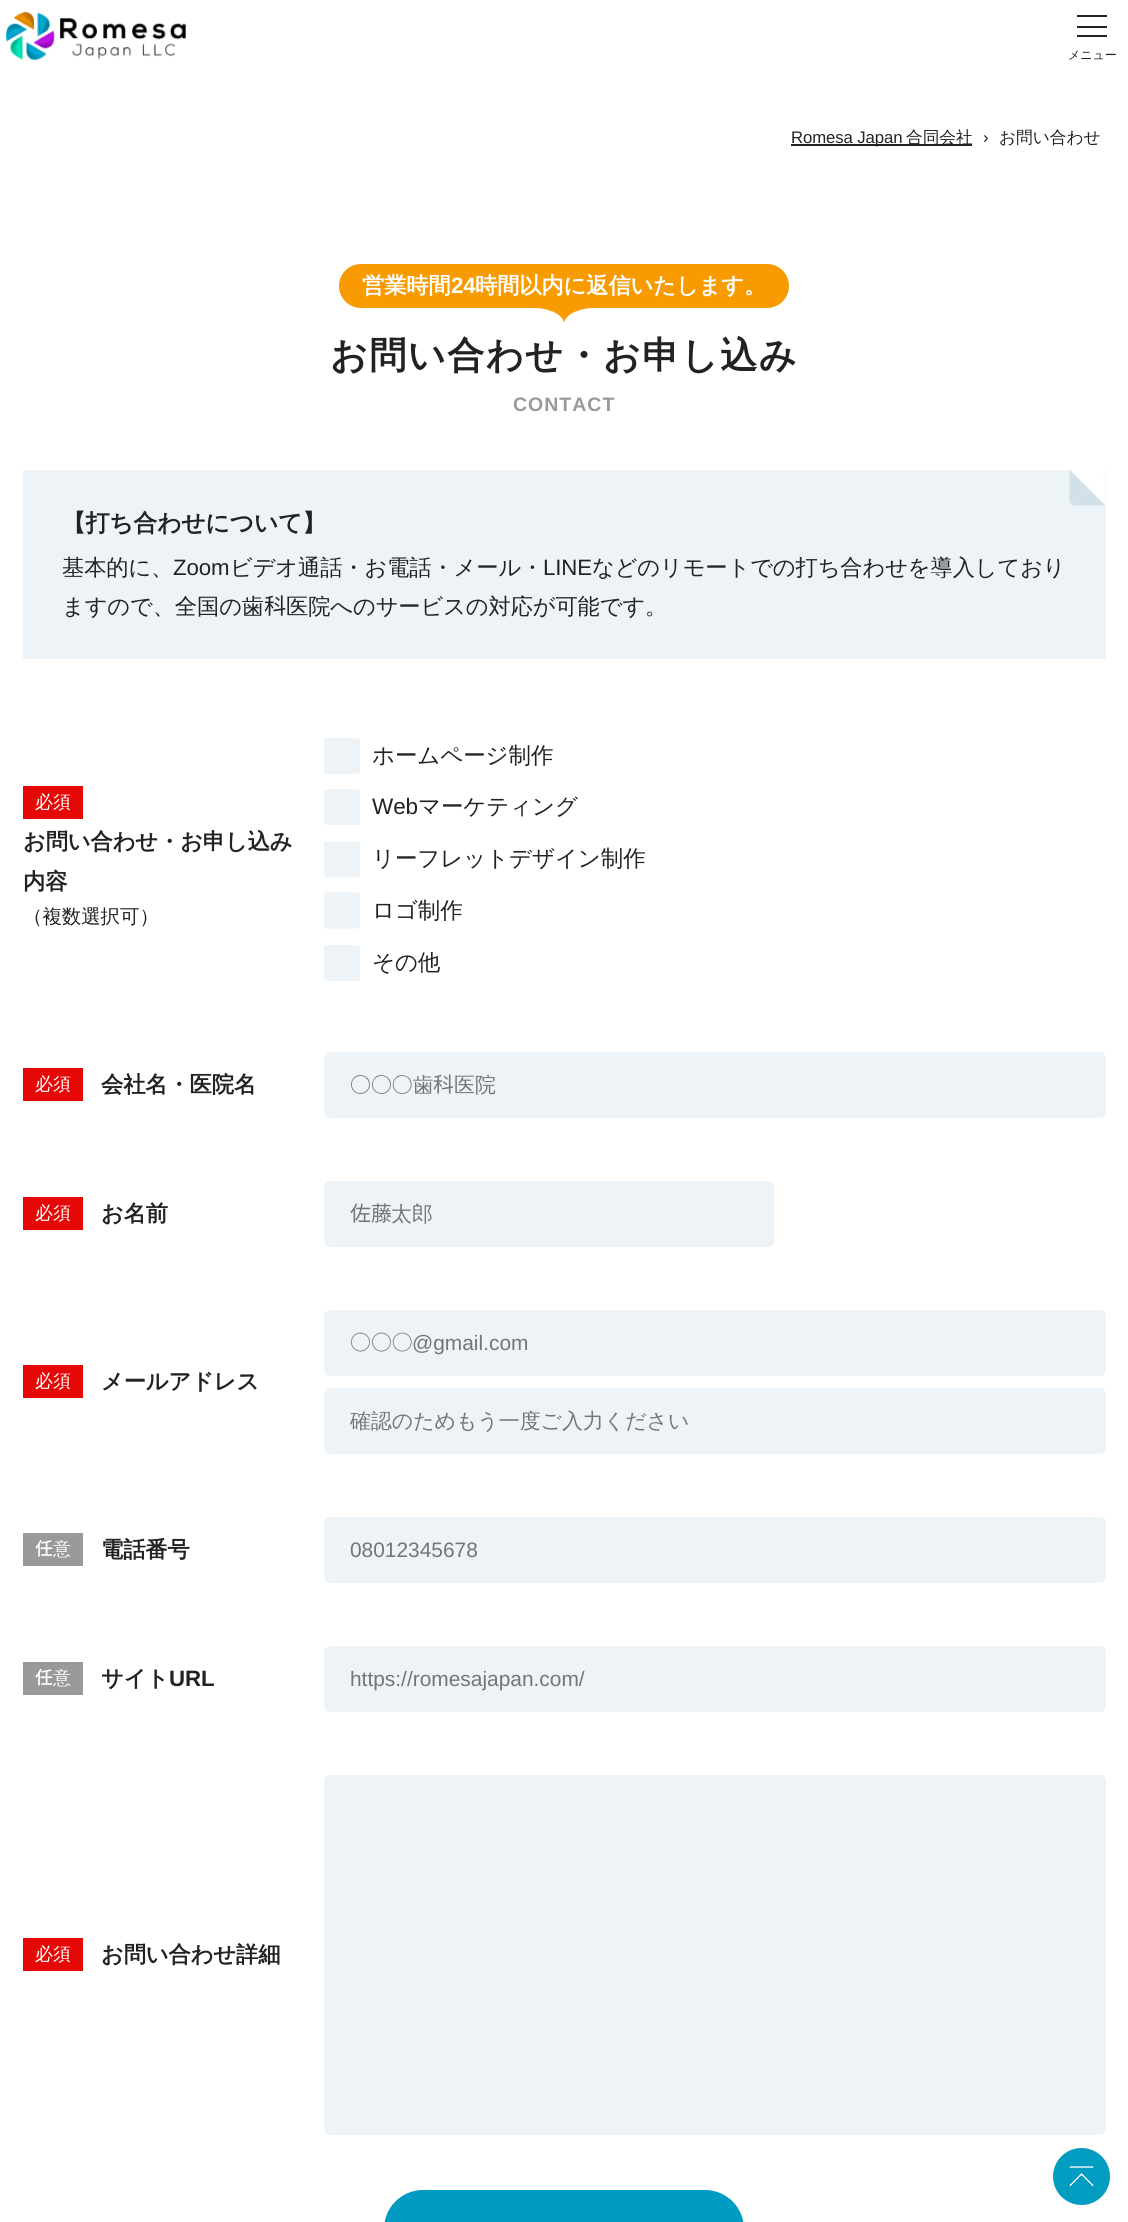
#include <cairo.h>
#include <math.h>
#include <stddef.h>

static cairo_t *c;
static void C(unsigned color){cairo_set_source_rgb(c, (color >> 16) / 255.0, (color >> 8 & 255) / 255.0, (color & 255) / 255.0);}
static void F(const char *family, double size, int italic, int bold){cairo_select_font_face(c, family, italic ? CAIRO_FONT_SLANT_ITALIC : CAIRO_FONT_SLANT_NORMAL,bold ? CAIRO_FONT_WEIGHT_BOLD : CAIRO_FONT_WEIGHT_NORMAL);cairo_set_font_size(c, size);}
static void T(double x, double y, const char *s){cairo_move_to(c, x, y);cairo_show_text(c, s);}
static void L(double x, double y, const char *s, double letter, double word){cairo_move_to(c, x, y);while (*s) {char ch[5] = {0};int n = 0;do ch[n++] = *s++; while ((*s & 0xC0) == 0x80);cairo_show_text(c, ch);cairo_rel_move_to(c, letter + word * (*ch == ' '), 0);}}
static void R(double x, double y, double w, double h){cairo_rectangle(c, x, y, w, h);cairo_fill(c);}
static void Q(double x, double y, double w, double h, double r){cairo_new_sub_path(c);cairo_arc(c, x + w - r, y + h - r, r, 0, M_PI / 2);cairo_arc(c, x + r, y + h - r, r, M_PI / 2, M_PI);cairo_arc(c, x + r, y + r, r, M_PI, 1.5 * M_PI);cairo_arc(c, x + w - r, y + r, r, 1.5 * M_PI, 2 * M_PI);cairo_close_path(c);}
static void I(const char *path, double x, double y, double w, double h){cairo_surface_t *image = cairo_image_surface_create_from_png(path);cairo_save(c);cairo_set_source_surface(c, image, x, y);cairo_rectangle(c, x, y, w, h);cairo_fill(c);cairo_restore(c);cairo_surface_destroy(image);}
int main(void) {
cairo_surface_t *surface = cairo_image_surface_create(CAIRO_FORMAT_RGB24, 1128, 2222);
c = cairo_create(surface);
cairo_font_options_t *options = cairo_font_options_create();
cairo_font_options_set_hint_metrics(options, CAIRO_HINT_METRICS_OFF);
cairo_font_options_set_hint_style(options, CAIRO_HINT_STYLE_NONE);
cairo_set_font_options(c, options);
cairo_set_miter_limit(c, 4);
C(0xffffff);
cairo_paint(c);
I("1.png",6,12,180,48);
C(0x222222);
R(1077,15,30,2);
R(1077,26,30,2);
R(1077,35,30,2);
F("WenQuanYi Zen Hei Medium",12,0,0);
T(1068,59,"メニュー");
R(791,144,181,2);
F("Liberation Sans",16.75,0,0);
L(791,143,"Romesa Japan",-.1,0);
F("WenQuanYi Zen Hei Medium",16.75,0,0);
L(906,143,"合同会社",-.1,0);
F("Liberation Sans",16.75,0,0);
L(983,143,"›",-.1,0);
F("WenQuanYi Zen Hei Medium",16.75,0,0);
L(999,143,"お問い合わせ",-.1,0);
C(0xf79b00);
Q(339,264,450,44,22);
cairo_fill(c);
F("WenQuanYi Zen Hei",22.25,0,1);
C(0xffffff);
L(362,293,"営業時間",-.1,0);
F("Liberation Sans",22.25,0,1);
L(451,293,"24",-.1,0);
F("WenQuanYi Zen Hei",22.25,0,1);
L(475,293,"時間以内に返信いたします。",-.1,0);
I("2.png",534,308,60,15);
F("WenQuanYi Zen Hei",37.1,0,1);
C(0x222222);
L(330,368,"お問い合わせ・お申し込み",1.4,0);
F("Liberation Sans",19.5,0,1);
C(0x999999);
L(513,411,"CONTACT",1,0);
C(0xedf3f6);
R(23,470,1083,189);
C(0xffffff);
cairo_new_path(c);
cairo_move_to(c,1069.5,469.5);
cairo_line_to(c,1105.5,469.5);
cairo_line_to(c,1087.5,487.5);
cairo_close_path(c);
cairo_fill(c);
cairo_new_path(c);
cairo_move_to(c,1105.5,469.5);
cairo_line_to(c,1105.5,505.5);
cairo_line_to(c,1087.5,487.5);
cairo_close_path(c);
cairo_fill(c);
C(0xd2e1e8);
cairo_new_path(c);
cairo_move_to(c,1087.5,487.5);
cairo_line_to(c,1071,504);
cairo_curve_to(c,1072,505,1074,505.5,1075.5,505.5);
cairo_line_to(c,1105.5,505.5);
cairo_close_path(c);
cairo_fill(c);
cairo_new_path(c);
cairo_move_to(c,1087.5,487.5);
cairo_line_to(c,1069.5,469.5);
cairo_line_to(c,1069.5,499.5);
cairo_curve_to(c,1069.5,501,1070,503,1071,504);
cairo_close_path(c);
cairo_fill(c);
F("WenQuanYi Zen Hei",23.75,0,1);
C(0x222222);
L(62,531,"【打ち合わせについて】",-.1,0);
F("WenQuanYi Zen Hei Medium",22.25,0,0);
L(62,575,"基本的に、",-.1,0);
F("Liberation Sans",22.25,0,0);
L(173,575,"Zoom",-.1,0);
F("WenQuanYi Zen Hei Medium",22.25,0,0);
L(230,575,"ビデオ通話・お電話・メール・",-.1,0);
F("Liberation Sans",22.25,0,0);
L(543,575,"LINE",-.1,0);
F("WenQuanYi Zen Hei Medium",22.25,0,0);
L(592,575,"などのリモートでの打ち合わせを導入しており",-.1,0);
L(62,614,"ますので、全国の歯",-.1,0);
F("Noto Sans JP",22.25,0,0);
L(264,614,"科",-.1,0);
F("WenQuanYi Zen Hei Medium",22.25,0,0);
L(286,614,"医院へのサービスの対応が可能です。",-.1,0);
C(0xe60707);
R(23,786,60,33);
F("WenQuanYi Zen Hei Medium",18,0,0);
C(0xffffff);
L(35,808,"必須",-.1,0);
F("WenQuanYi Zen Hei",22.25,0,1);
C(0x222222);
L(23,849,"お問い合わせ・お申し込み",-.1,0);
L(23,889,"内容",-.1,0);
F("WenQuanYi Zen Hei Medium",19.5,0,0);
L(23,923,"（複数選択可）",-.1,0);
I("3.png",324,738,36,36);
F("WenQuanYi Zen Hei Medium",22.5,0,0);
L(372,763,"ホームページ制作",-.1,0);
I("3.png",324,789,36,36);
F("Liberation Sans",22.5,0,0);
L(372,814,"Web",-.1,0);
F("WenQuanYi Zen Hei Medium",22.5,0,0);
L(418,814,"マーケティング",-.1,0);
I("4.png",324,841,36,37);
L(372,866,"リーフレットデザイン制作",-.1,0);
I("4.png",324,892,36,37);
L(372,918,"ロゴ制作",-.1,0);
I("3.png",324,945,36,36);
L(372,970,"その他",-.1,0);
C(0xe60707);
R(23,1068,60,33);
F("WenQuanYi Zen Hei Medium",18,0,0);
C(0xffffff);
L(35,1090,"必須",-.1,0);
F("WenQuanYi Zen Hei",22.25,0,1);
C(0x222222);
L(101,1092,"会社名・医院名",-.1,0);
C(0xedf3f6);
Q(325,1053,780,64,5);
cairo_fill_preserve(c);
cairo_stroke(c);
F("WenQuanYi Zen Hei Medium",20.9,0,0);
C(0x757575);
T(350,1092,"○○○歯");
F("Noto Sans JP",20.9,0,0);
T(433,1092,"科");
F("WenQuanYi Zen Hei Medium",20.9,0,0);
T(454,1092,"医院");
C(0xe60707);
R(23,1197,60,33);
F("WenQuanYi Zen Hei Medium",18,0,0);
C(0xffffff);
L(35,1219,"必須",-.1,0);
F("WenQuanYi Zen Hei",22.25,0,1);
C(0x222222);
L(101,1221,"お名前",-.1,0);
C(0xedf3f6);
Q(325,1182,448,64,5);
cairo_fill_preserve(c);
cairo_stroke(c);
F("Noto Sans JP",20.9,0,0);
C(0x757575);
T(350,1221,"佐藤");
F("WenQuanYi Zen Hei Medium",20.9,0,0);
T(391,1221,"太郎");
C(0xe60707);
R(23,1365,60,33);
F("WenQuanYi Zen Hei Medium",18,0,0);
C(0xffffff);
L(35,1387,"必須",-.1,0);
F("WenQuanYi Zen Hei",22.25,0,1);
C(0x222222);
L(101,1389,"メールアドレス",-.1,0);
C(0xedf3f6);
Q(325,1311,780,64,5);
cairo_fill_preserve(c);
cairo_stroke(c);
F("Noto Sans JP",20.9,0,0);
C(0x757575);
T(350,1350,"○○○");
F("Liberation Sans",20.9,0,0);
T(412,1350,"@gmail.com");
C(0xedf3f6);
Q(325,1389,780,64,5);
cairo_fill_preserve(c);
cairo_stroke(c);
F("WenQuanYi Zen Hei Medium",20.9,0,0);
C(0x757575);
T(350,1428,"確認のためもう一度ご入力ください");
C(0x999999);
R(23,1533,60,33);
F("Noto Sans JP Medium",18,0,0);
C(0xffffff);
L(35,1555,"任",-.1,0);
F("WenQuanYi Zen Hei Medium",18,0,0);
L(53,1555,"意",-.1,0);
F("WenQuanYi Zen Hei",22.25,0,1);
C(0x222222);
L(101,1557,"電話番号",-.1,0);
C(0xedf3f6);
Q(325,1518,780,64,5);
cairo_fill_preserve(c);
cairo_stroke(c);
F("Liberation Sans",20.9,0,0);
C(0x757575);
T(350,1557,"08012345678");
C(0x999999);
R(23,1662,60,33);
F("Noto Sans JP Medium",18,0,0);
C(0xffffff);
L(35,1684,"任",-.1,0);
F("WenQuanYi Zen Hei Medium",18,0,0);
L(53,1684,"意",-.1,0);
F("WenQuanYi Zen Hei",22.25,0,1);
C(0x222222);
L(101,1686,"サイト",-.1,0);
F("Liberation Sans",22.25,0,1);
L(169,1686,"URL",-.1,0);
C(0xedf3f6);
Q(325,1647,780,64,5);
cairo_fill_preserve(c);
cairo_stroke(c);
F("Liberation Sans",20.9,0,0);
C(0x757575);
T(350,1686,"https://romesajapan.com/");
C(0xe60707);
R(23,1938,60,33);
F("WenQuanYi Zen Hei Medium",18,0,0);
C(0xffffff);
L(35,1960,"必須",-.1,0);
F("WenQuanYi Zen Hei",22.25,0,1);
C(0x222222);
L(101,1962,"お問い合わせ詳細",-.1,0);
C(0xedf3f6);
Q(325,1776,780,358,5);
cairo_fill_preserve(c);
cairo_stroke(c);
C(0x009bc1);
Q(384,2190,360,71,39);
cairo_fill(c);
C(0x029cc1);
cairo_arc(c,1081.5,2176.5,28.5,0,2 * M_PI);
cairo_fill(c);
I("5.png",1069,2166,25,20);
cairo_surface_write_to_png(surface, "o.png");
cairo_font_options_destroy(options);
cairo_destroy(c);
cairo_surface_destroy(surface);
return 0;
}
